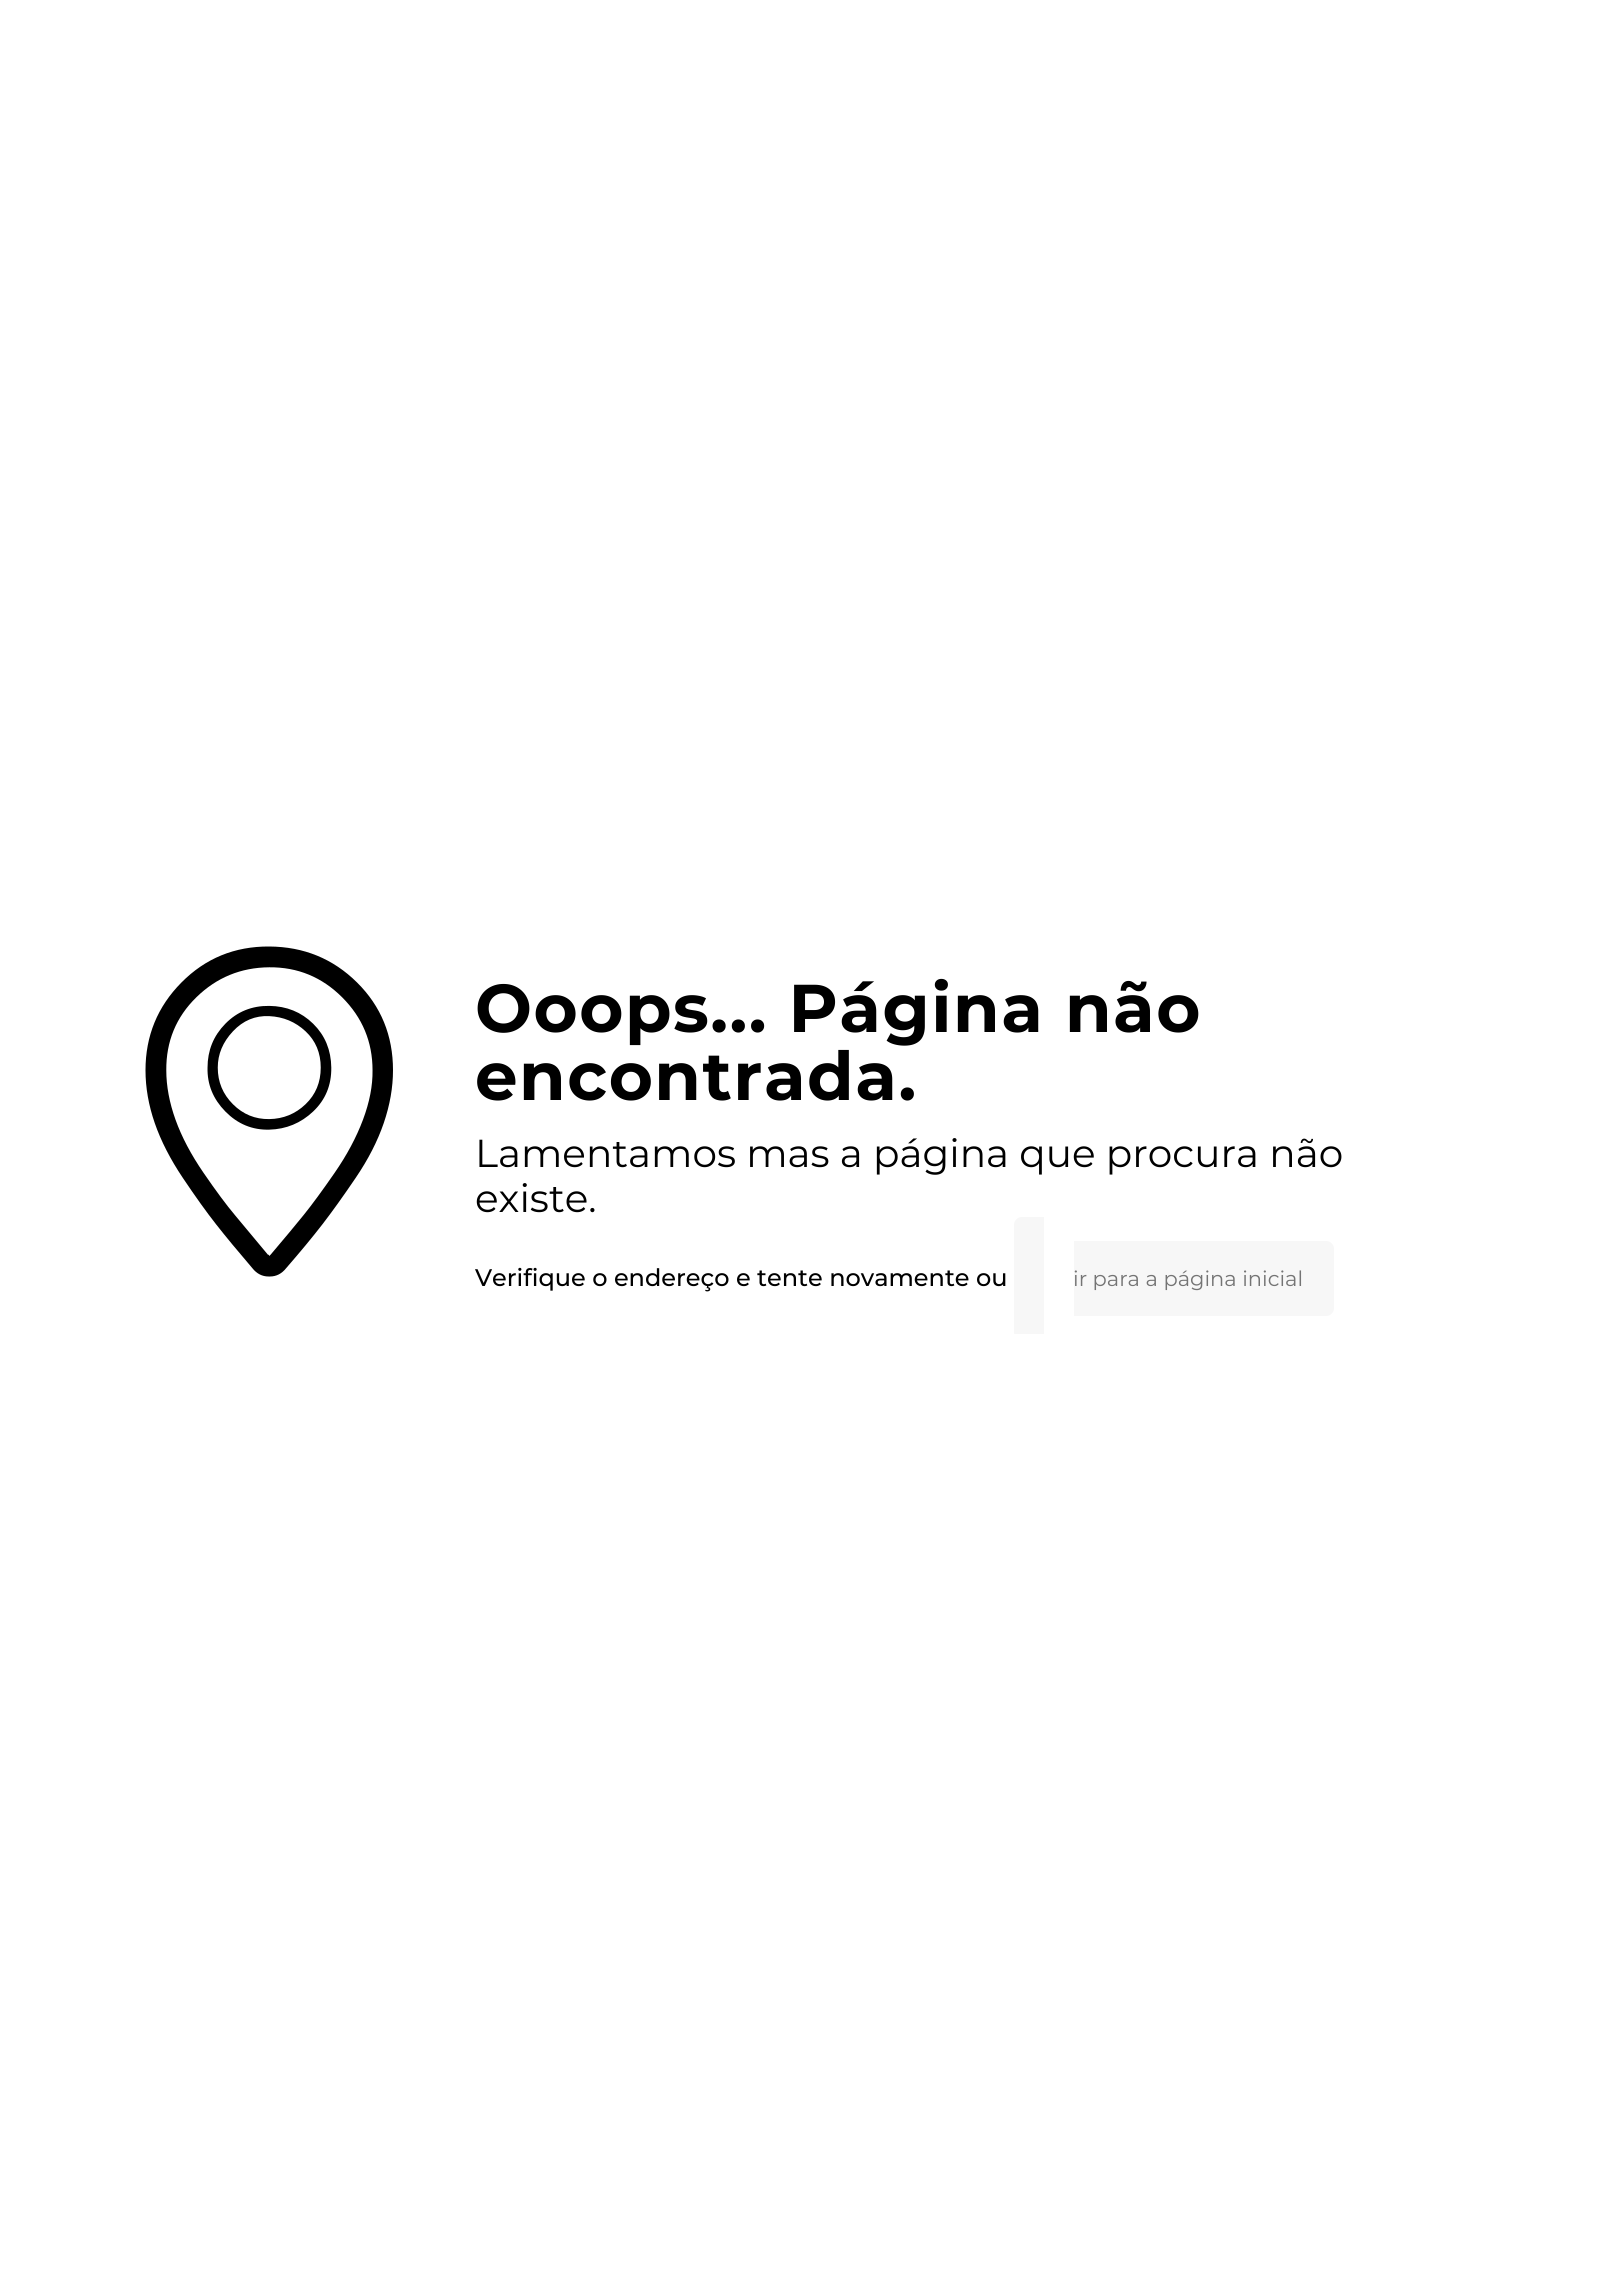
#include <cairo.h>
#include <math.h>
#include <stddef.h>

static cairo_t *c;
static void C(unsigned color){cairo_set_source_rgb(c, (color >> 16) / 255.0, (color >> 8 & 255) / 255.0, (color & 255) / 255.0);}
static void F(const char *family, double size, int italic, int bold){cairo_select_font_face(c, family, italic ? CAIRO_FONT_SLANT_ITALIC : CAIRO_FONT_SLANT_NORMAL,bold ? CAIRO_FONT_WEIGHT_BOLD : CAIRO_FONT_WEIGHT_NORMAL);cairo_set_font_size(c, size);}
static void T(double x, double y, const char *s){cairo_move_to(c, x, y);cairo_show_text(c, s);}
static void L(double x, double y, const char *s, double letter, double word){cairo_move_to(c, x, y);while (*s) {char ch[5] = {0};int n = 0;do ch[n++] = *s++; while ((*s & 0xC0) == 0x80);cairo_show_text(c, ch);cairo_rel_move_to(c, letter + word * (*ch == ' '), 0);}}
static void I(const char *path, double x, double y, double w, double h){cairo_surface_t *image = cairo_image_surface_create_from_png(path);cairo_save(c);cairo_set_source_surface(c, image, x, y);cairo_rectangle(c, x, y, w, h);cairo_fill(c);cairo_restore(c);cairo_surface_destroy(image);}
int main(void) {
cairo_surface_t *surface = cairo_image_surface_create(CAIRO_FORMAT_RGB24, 1609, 2277);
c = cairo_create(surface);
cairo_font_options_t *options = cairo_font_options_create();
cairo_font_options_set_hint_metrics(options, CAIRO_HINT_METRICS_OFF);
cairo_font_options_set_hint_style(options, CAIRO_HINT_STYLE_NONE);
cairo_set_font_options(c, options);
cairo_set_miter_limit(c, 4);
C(0xffffff);
cairo_paint(c);
I("1.png",145,946,248,331);
F("Montserrat",67.5,0,1);
C(0x000000);
L(475,1032,"Ooops... Página não",1.5,0);
L(475,1100,"encontrada.",1.5,0);
F("Montserrat Thin",39,0,0);
T(475,1167,"Lamentamos mas a página que procura não");
T(475,1212,"existe.");
F("Montserrat Medium",24,0,0);
T(475,1286,"Verifique o endereço e tente novamente ou");
C(0xf7f7f7);
cairo_new_path(c);
cairo_move_to(c,1074,1241);
cairo_line_to(c,1326,1241);
cairo_curve_to(c,1330.5,1241,1334,1244.5,1334,1249);
cairo_line_to(c,1334,1308);
cairo_curve_to(c,1334,1312.5,1330.5,1316,1326,1316);
cairo_line_to(c,1074,1316);
cairo_close_path(c);
cairo_fill(c);
F("Montserrat Thin",21,0,0);
C(0x747474);
T(1073,1286,"ir para a página inicial");
cairo_save(c);
cairo_rectangle(c,45,914,1410,420);
cairo_clip(c);
C(0xf7f7f7);
cairo_new_path(c);
cairo_move_to(c,1022,1217);
cairo_line_to(c,1044,1217);
cairo_line_to(c,1044,1340);
cairo_line_to(c,1022,1340);
cairo_curve_to(c,1017.5,1340,1014,1336.5,1014,1332);
cairo_line_to(c,1014,1225);
cairo_curve_to(c,1014,1220.5,1017.5,1217,1022,1217);
cairo_close_path(c);
cairo_fill(c);
cairo_restore(c);
cairo_surface_write_to_png(surface, "o.png");
cairo_font_options_destroy(options);
cairo_destroy(c);
cairo_surface_destroy(surface);
return 0;
}
